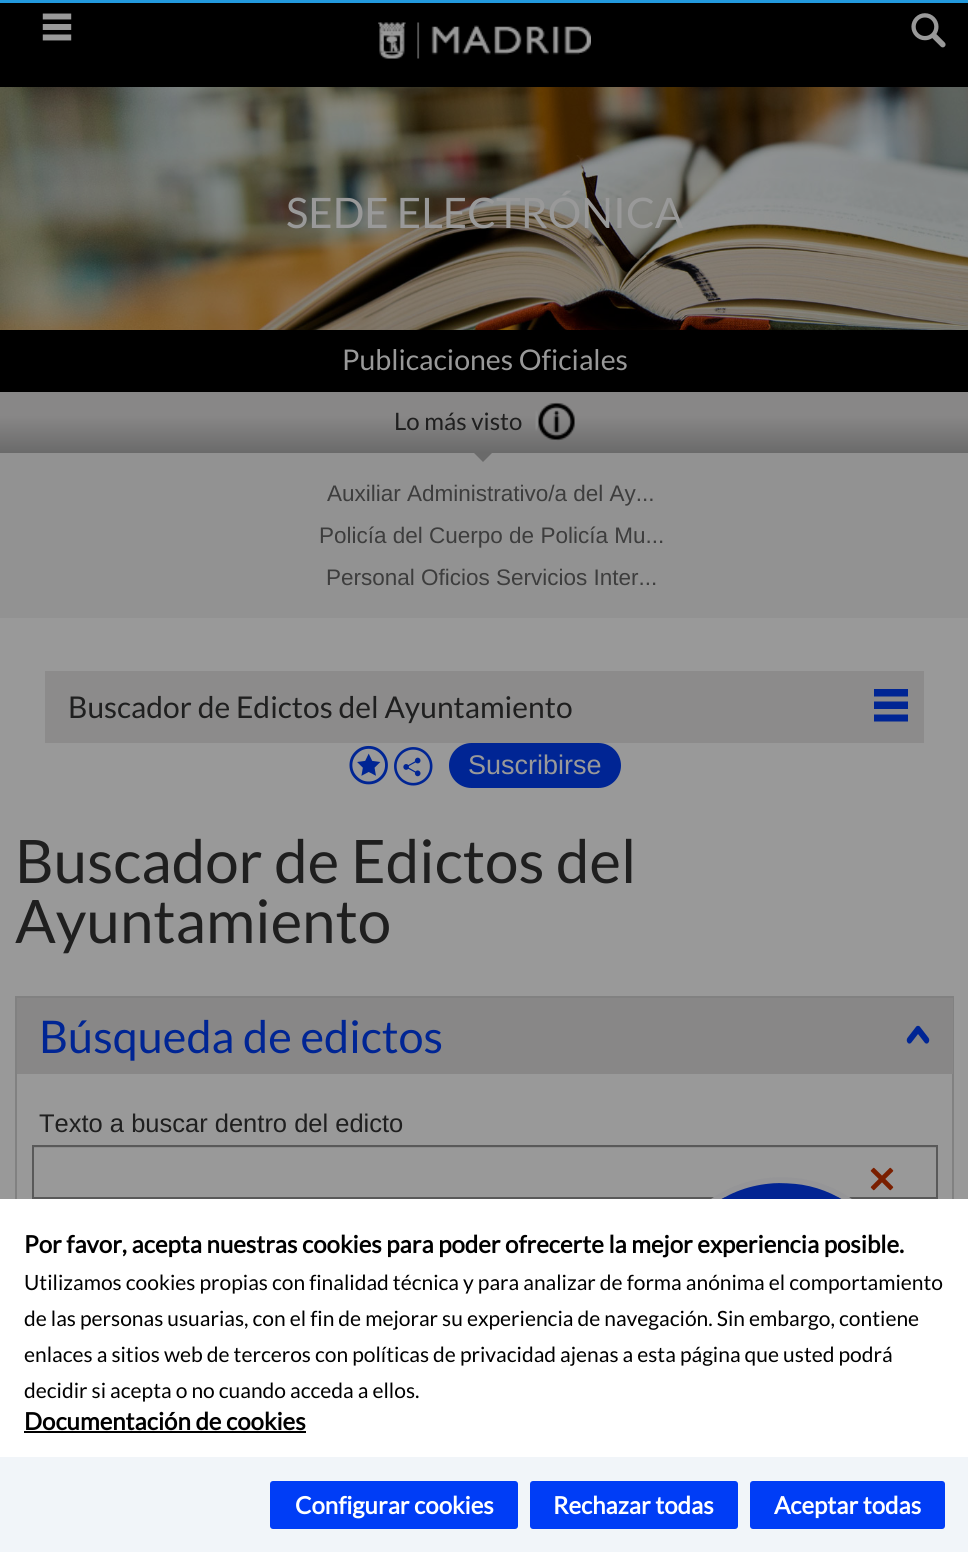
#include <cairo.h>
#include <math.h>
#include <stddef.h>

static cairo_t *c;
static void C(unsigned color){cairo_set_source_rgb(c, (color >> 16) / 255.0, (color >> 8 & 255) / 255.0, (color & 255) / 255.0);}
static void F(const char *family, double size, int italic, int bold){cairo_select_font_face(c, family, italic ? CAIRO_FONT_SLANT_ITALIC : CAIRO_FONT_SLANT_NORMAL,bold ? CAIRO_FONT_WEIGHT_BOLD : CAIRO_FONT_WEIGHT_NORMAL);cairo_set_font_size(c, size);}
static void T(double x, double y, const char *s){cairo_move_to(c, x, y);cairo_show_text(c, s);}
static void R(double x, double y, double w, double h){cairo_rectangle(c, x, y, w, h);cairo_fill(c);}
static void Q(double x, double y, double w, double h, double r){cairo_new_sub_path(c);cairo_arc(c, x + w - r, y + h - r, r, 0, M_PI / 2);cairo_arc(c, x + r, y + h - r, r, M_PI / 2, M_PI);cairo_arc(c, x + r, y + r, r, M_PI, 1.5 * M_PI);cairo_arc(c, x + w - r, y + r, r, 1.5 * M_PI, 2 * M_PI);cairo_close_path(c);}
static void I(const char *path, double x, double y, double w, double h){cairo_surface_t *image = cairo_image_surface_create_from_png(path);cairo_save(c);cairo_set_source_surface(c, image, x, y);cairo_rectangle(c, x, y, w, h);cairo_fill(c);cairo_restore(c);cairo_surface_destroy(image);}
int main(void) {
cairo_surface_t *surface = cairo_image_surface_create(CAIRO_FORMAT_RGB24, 968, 1552);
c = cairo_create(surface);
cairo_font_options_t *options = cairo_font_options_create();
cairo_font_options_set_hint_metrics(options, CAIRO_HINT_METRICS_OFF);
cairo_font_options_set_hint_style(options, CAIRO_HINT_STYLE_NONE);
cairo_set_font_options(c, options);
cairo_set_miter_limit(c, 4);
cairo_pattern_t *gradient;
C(0x999999);
cairo_paint(c);
C(0x2299dd);
R(0,0,968,3);
C(0x000000);
R(0,3,968,84);
I("1.png",42,13,30,28);
I("2.png",378,22,213,37);
I("3.png",911,13,35,35);
I("4.png",0,87,968,243);
F("Lato",42,0,0);
C(0x999999);
T(286,228,"SEDE ELECTRÓNICA");
C(0x000000);
R(0,330,968,62);
F("Lato",28.5,0,0);
C(0x999999);
T(342,370,"Publicaciones Oficiales");
C(0x929292);
R(0,453,968,165);
gradient = cairo_pattern_create_linear(485,391,485,453);
cairo_pattern_add_color_stop_rgba(gradient,0,0.533,0.529,0.529,1);
cairo_pattern_add_color_stop_rgba(gradient,.4,0.533,0.529,0.529,1);
cairo_pattern_add_color_stop_rgba(gradient,1,0.416,0.416,0.416,1);
cairo_set_source(c,gradient);
cairo_pattern_destroy(gradient);
R(0,392,968,61);
F("Lato",24,0,0);
C(0x1f1f1f);
T(394,430,"Lo más visto");
I("5.png",535,402,40,39);
C(0x6a6a6a);
cairo_new_path(c);
cairo_move_to(c,474,453);
cairo_line_to(c,492,453);
cairo_line_to(c,483,462);
cairo_close_path(c);
cairo_fill(c);
F("Liberation Sans",22.5,0,0);
C(0x3d3d3d);
T(327,501,"Auxiliar Administrativo/a del Ay...");
T(319,543,"Policía del Cuerpo de Policía Mu...");
T(326,585,"Personal Oficios Servicios Inter...");
C(0x8c8b8b);
R(45,671,879,72);
F("Lato",30,0,0);
C(0x1f1f1f);
T(68,718,"Buscador de Edictos del Ayuntamiento");
C(0x002594);
cairo_new_path(c);
cairo_move_to(c,874,689);
cairo_line_to(c,874,696.5);
cairo_line_to(c,908,696.5);
cairo_line_to(c,908,689);
cairo_close_path(c);
cairo_move_to(c,874,709);
cairo_line_to(c,908,709);
cairo_line_to(c,908,701.5);
cairo_line_to(c,874,701.5);
cairo_close_path(c);
cairo_move_to(c,874,721.5);
cairo_line_to(c,908,721.5);
cairo_line_to(c,908,714.5);
cairo_line_to(c,874,714.5);
cairo_close_path(c);
cairo_fill(c);
I("6.png",349,745,39,40);
I("7.png",394,747,39,39);
Q(449,743,172,45,22.5);
cairo_fill(c);
F("Liberation Sans",27,0,0);
C(0x999999);
T(468,774,"Suscribirse");
F("Lato",60,0,0);
C(0x1f1f1f);
T(15,883,"Buscador de Edictos del");
T(15,943,"Ayuntamiento");
cairo_rectangle(c,16,997,937,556);
C(0x818181);
cairo_stroke(c);
C(0x888787);
R(17,998,936,76);
F("Lato",45,0,0);
C(0x002594);
T(39,1053,"Búsqueda de edictos");
I("8.png",906,1025,24,19);
F("Liberation Sans",25.5,0,0);
C(0x1f1f1f);
T(39,1132,"Texto a buscar dentro del edicto");
C(0x8e8e8e);
R(33,1147,903,1);
cairo_rectangle(c,33,1146,904,52);
C(0x595959);
cairo_stroke(c);
I("9.png",711,1177,141,22);
I("10.png",870,1167,24,24);
C(0xffffff);
R(0,1199,968,258);
F("Lato",24,0,1);
C(0x000000);
T(24,1253,"Por favor, acepta nuestras cookies para poder ofrecerte la mejor experiencia posible.");
F("Lato",21,0,0);
T(24,1290,"Utilizamos cookies propias con finalidad técnica y para analizar de forma anónima el comportamiento");
T(24,1326,"de las personas usuarias, con el fin de mejorar su experiencia de navegación. Sin embargo, contiene");
T(24,1362,"enlaces a sitios web de terceros con políticas de privacidad ajenas a esta página que usted podrá");
T(24,1398,"decidir si acepta o no cuando acceda a ellos.");
F("Lato",24,0,1);
T(24,1430,"Documentación de cookies");
R(24,1431,282,2);
C(0xf1f5f9);
R(0,1457,968,95);
C(0x003df6);
Q(270,1481,248,48,3);
cairo_fill(c);
C(0xffffff);
T(295,1514,"Configurar cookies");
C(0x003df6);
Q(530,1481,208,48,3);
cairo_fill(c);
C(0xffffff);
T(553,1514,"Rechazar todas");
C(0x003df6);
Q(750,1481,195,48,3);
cairo_fill(c);
C(0xffffff);
T(774,1514,"Aceptar todas");
cairo_surface_write_to_png(surface, "o.png");
cairo_font_options_destroy(options);
cairo_destroy(c);
cairo_surface_destroy(surface);
return 0;
}
